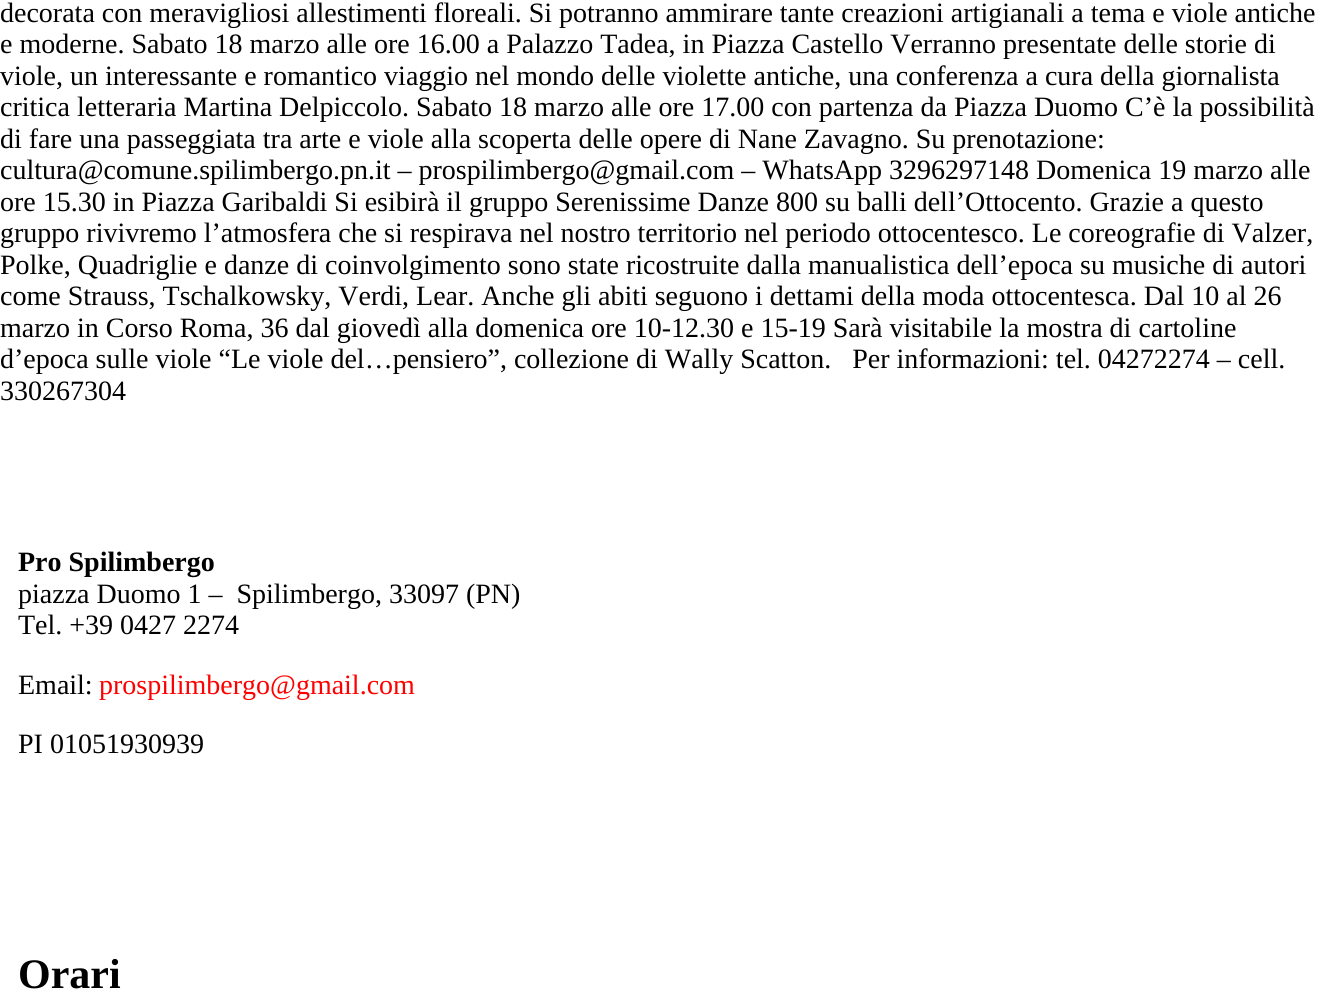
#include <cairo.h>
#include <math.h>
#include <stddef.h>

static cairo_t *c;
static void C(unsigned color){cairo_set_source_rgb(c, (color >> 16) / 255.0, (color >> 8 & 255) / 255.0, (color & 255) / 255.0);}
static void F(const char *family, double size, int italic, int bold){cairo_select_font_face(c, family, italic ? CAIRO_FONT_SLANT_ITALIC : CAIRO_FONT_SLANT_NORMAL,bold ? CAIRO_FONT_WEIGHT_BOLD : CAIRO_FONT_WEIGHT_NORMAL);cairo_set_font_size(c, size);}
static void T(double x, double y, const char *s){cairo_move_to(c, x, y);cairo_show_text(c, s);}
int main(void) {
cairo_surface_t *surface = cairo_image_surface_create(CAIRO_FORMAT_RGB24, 1323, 1004);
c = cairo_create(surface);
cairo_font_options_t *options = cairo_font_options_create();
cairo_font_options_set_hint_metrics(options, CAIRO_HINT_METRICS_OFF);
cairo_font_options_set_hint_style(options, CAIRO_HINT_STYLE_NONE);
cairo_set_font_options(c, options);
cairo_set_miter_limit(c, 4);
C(0xffffff);
cairo_paint(c);
F("Liberation Serif",28,0,0);
C(0x000000);
T(0,22,"decorata con meravigliosi allestimenti floreali. Si potranno ammirare tante creazioni artigianali a tema e viole antiche");
T(0,53,"e moderne. Sabato 18 marzo alle ore 16.00 a Palazzo Tadea, in Piazza Castello Verranno presentate delle storie di");
T(0,85,"viole, un interessante e romantico viaggio nel mondo delle violette antiche, una conferenza a cura della giornalista");
T(0,116,"critica letteraria Martina Delpiccolo. Sabato 18 marzo alle ore 17.00 con partenza da Piazza Duomo C’è la possibilità");
T(0,148,"di fare una passeggiata tra arte e viole alla scoperta delle opere di Nane Zavagno. Su prenotazione:");
T(0,179,"cultura@comune.spilimbergo.pn.it – prospilimbergo@gmail.com – WhatsApp 3296297148 Domenica 19 marzo alle");
T(0,211,"ore 15.30 in Piazza Garibaldi Si esibirà il gruppo Serenissime Danze 800 su balli dell’Ottocento. Grazie a questo");
T(0,242,"gruppo rivivremo l’atmosfera che si respirava nel nostro territorio nel periodo ottocentesco. Le coreografie di Valzer,");
T(0,274,"Polke, Quadriglie e danze di coinvolgimento sono state ricostruite dalla manualistica dell’epoca su musiche di autori");
T(0,305,"come Strauss, Tschalkowsky, Verdi, Lear. Anche gli abiti seguono i dettami della moda ottocentesca. Dal 10 al 26");
T(0,337,"marzo in Corso Roma, 36 dal giovedì alla domenica ore 10-12.30 e 15-19 Sarà visitabile la mostra di cartoline");
T(0,368,"d’epoca sulle viole “Le viole del…pensiero”, collezione di Wally Scatton.   Per informazioni: tel. 04272274 – cell.");
T(0,400,"330267304");
F("Liberation Serif",28,0,1);
T(18,571,"Pro Spilimbergo");
F("Liberation Serif",28,0,0);
T(18,603,"piazza Duomo 1 –  Spilimbergo, 33097 (PN)");
T(18,634,"Tel. +39 0427 2274");
T(18,694,"Email:");
C(0xff0000);
T(99,694,"prospilimbergo@gmail.com");
C(0x000000);
T(18,753,"PI 01051930939");
F("Liberation Serif",42,0,1);
T(18,988,"Orari");
cairo_surface_write_to_png(surface, "o.png");
cairo_font_options_destroy(options);
cairo_destroy(c);
cairo_surface_destroy(surface);
return 0;
}
